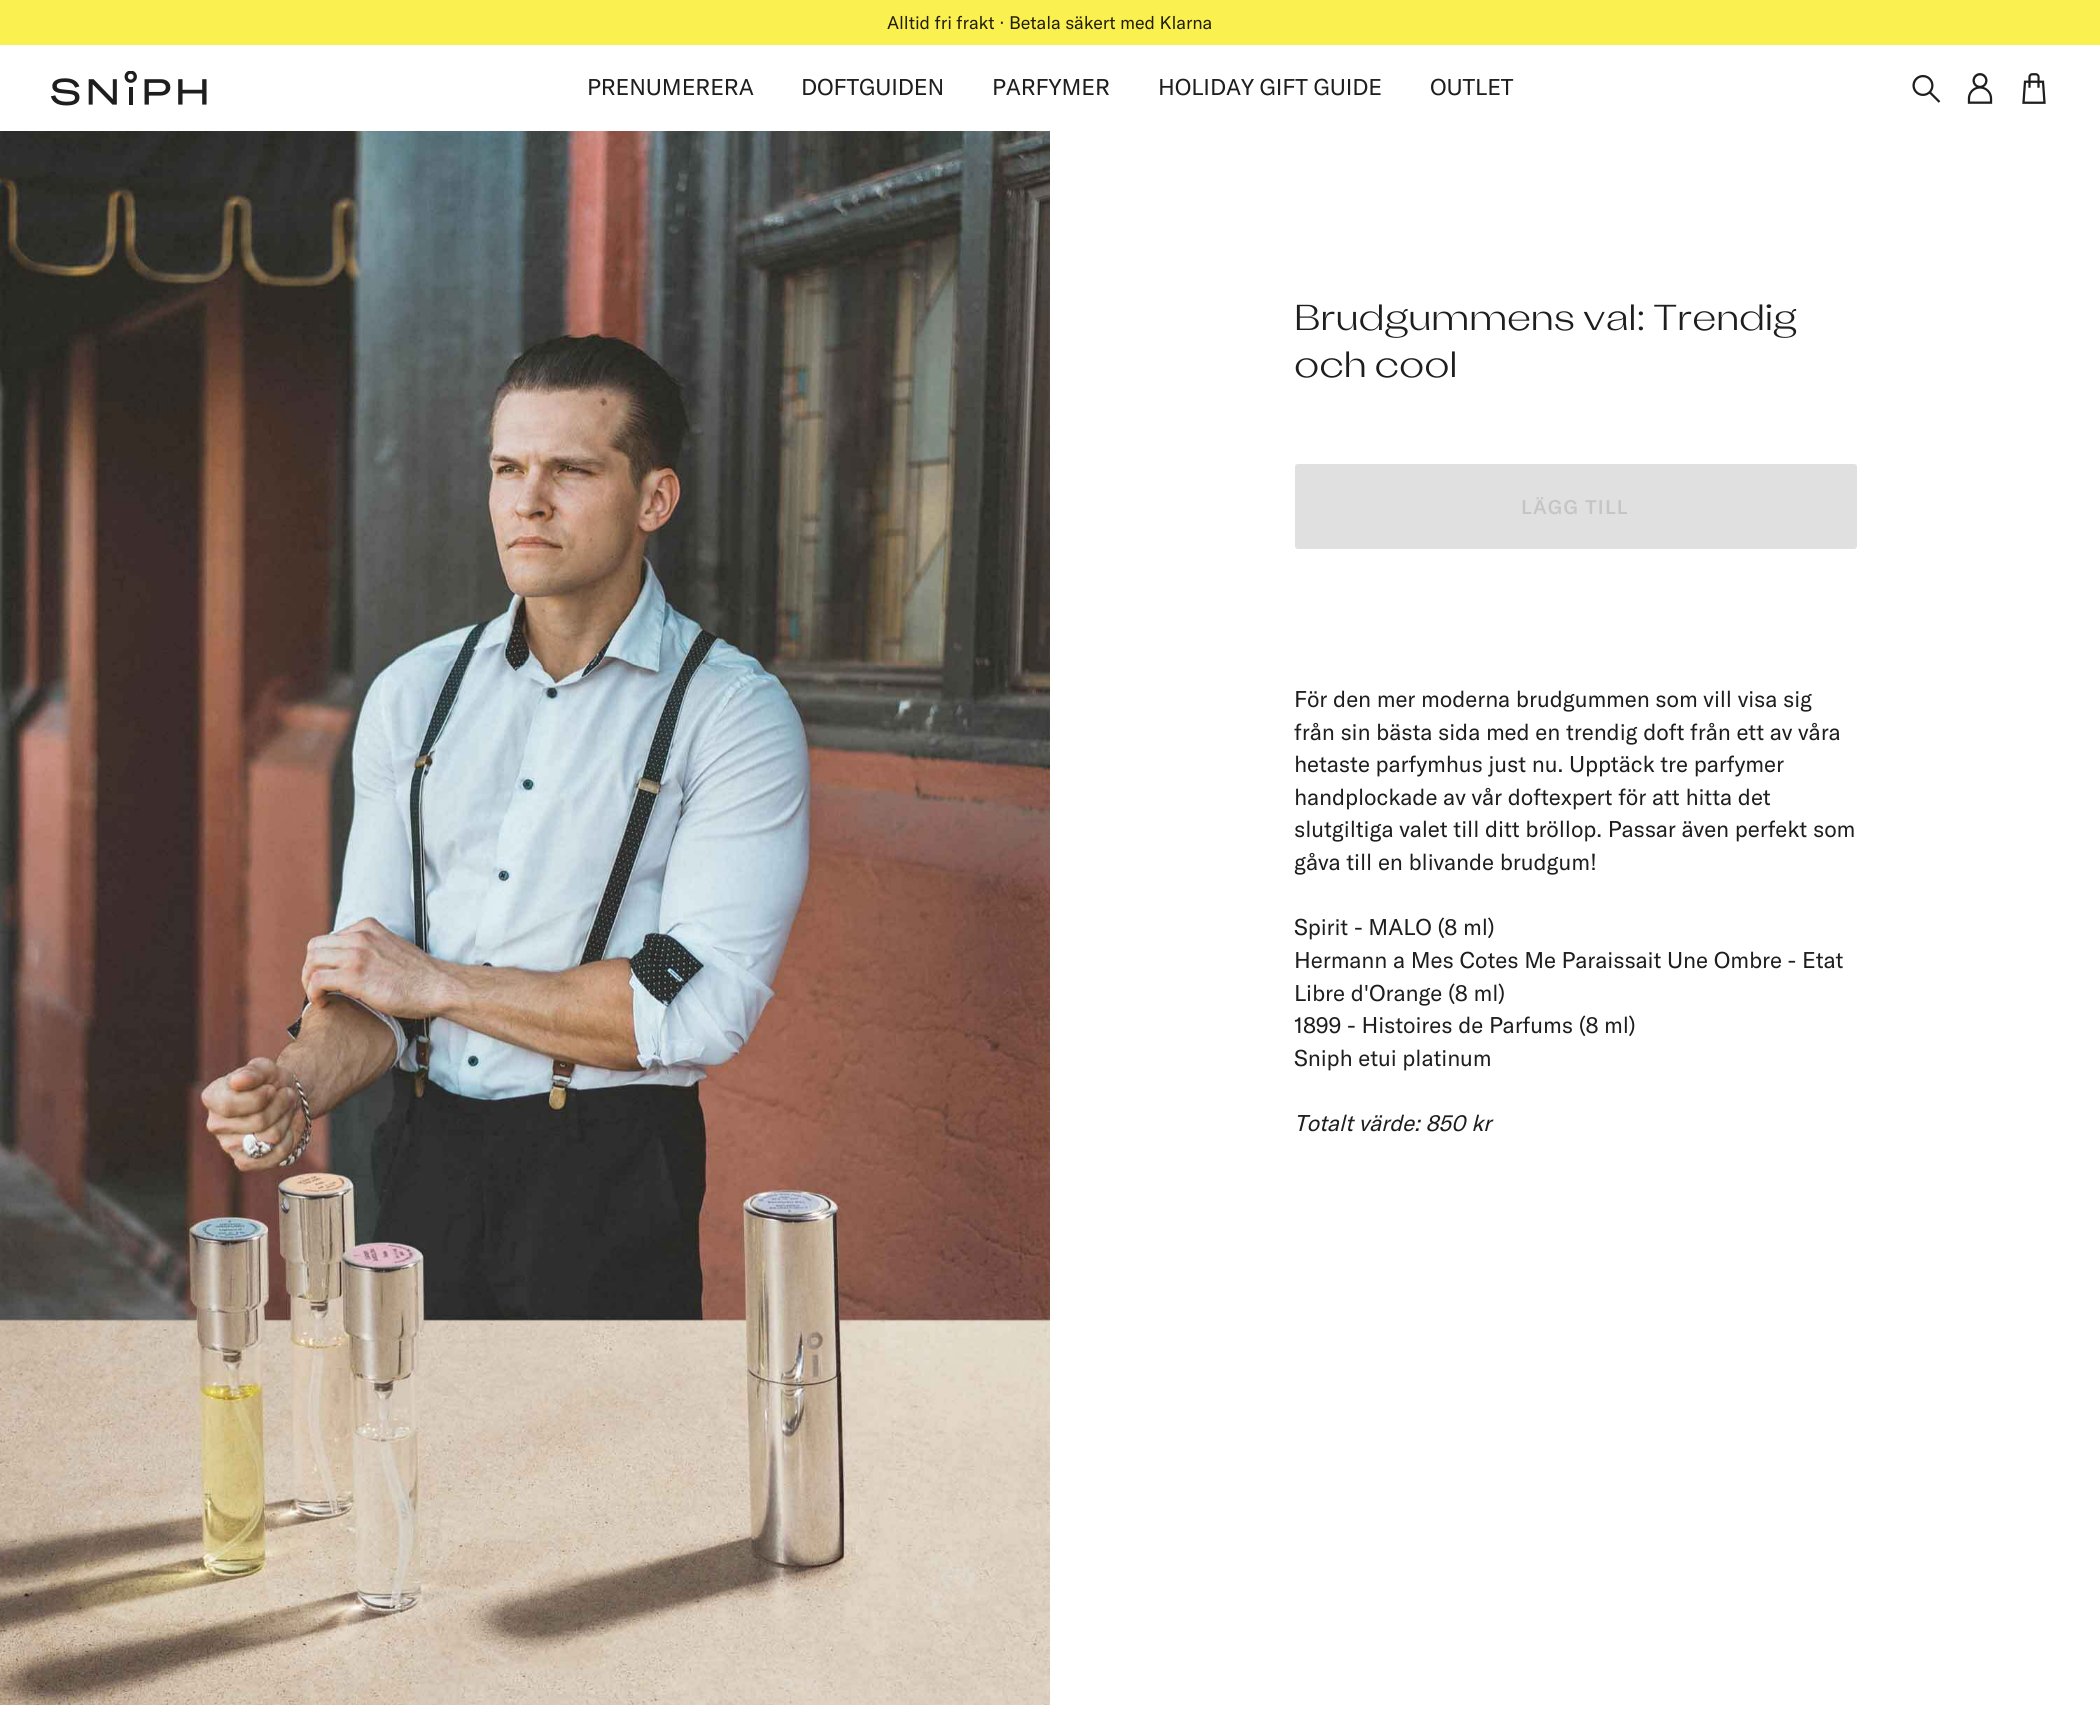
#include <cairo.h>
#include <math.h>
#include <stddef.h>

static cairo_t *c;
static void C(unsigned color){cairo_set_source_rgb(c, (color >> 16) / 255.0, (color >> 8 & 255) / 255.0, (color & 255) / 255.0);}
static void F(const char *family, double size, int italic, int bold){cairo_select_font_face(c, family, italic ? CAIRO_FONT_SLANT_ITALIC : CAIRO_FONT_SLANT_NORMAL,bold ? CAIRO_FONT_WEIGHT_BOLD : CAIRO_FONT_WEIGHT_NORMAL);cairo_set_font_size(c, size);}
static void T(double x, double y, const char *s){cairo_move_to(c, x, y);cairo_show_text(c, s);}
static void L(double x, double y, const char *s, double letter, double word){cairo_move_to(c, x, y);while (*s) {char ch[5] = {0};int n = 0;do ch[n++] = *s++; while ((*s & 0xC0) == 0x80);cairo_show_text(c, ch);cairo_rel_move_to(c, letter + word * (*ch == ' '), 0);}}
static void R(double x, double y, double w, double h){cairo_rectangle(c, x, y, w, h);cairo_fill(c);}
static void Q(double x, double y, double w, double h, double r){cairo_new_sub_path(c);cairo_arc(c, x + w - r, y + h - r, r, 0, M_PI / 2);cairo_arc(c, x + r, y + h - r, r, M_PI / 2, M_PI);cairo_arc(c, x + r, y + r, r, M_PI, 1.5 * M_PI);cairo_arc(c, x + w - r, y + r, r, 1.5 * M_PI, 2 * M_PI);cairo_close_path(c);}
static void I(const char *path, double x, double y, double w, double h){cairo_surface_t *image = cairo_image_surface_create_from_png(path);cairo_save(c);cairo_set_source_surface(c, image, x, y);cairo_rectangle(c, x, y, w, h);cairo_fill(c);cairo_restore(c);cairo_surface_destroy(image);}
int main(void) {
cairo_surface_t *surface = cairo_image_surface_create(CAIRO_FORMAT_RGB24, 2100, 1734);
c = cairo_create(surface);
cairo_font_options_t *options = cairo_font_options_create();
cairo_font_options_set_hint_metrics(options, CAIRO_HINT_METRICS_OFF);
cairo_font_options_set_hint_style(options, CAIRO_HINT_STYLE_NONE);
cairo_set_font_options(c, options);
cairo_set_miter_limit(c, 4);
C(0xffffff);
cairo_paint(c);
C(0xfaf050);
R(0,0,2100,45);
F("GT America",18,0,0);
C(0x211f0a);
L(887,29,"Alltid fri frakt",-.1,0);
F("DejaVu Sans",18,0,0);
L(999,29,"⋅",-.1,0);
F("GT America",18,0,0);
L(1009,29,"Betala säkert med Klarna",-.1,0);
I("1.png",50,71,157,35);
F("GT America",22.5,0,0);
C(0x1e1e1e);
L(587,95,"PRENUMERERA",-.1,0);
L(801,95,"DOFTGUIDEN",-.1,0);
L(992,95,"PARFYMER",-.1,0);
L(1158,95,"HOLIDAY GIFT GUIDE",-.1,0);
L(1430,95,"OUTLET",-.1,0);
I("2.png",1912,74,29,29);
I("3.png",1967,73,26,31);
I("4.png",2022,73,24,31);
I("5.png",0,131,1050,1574);
F("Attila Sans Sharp",36,0,0);
T(1294,330,"Brudgummens val: Trendig");
T(1294,377,"och cool");
C(0xe0e0e0);
Q(1295,464,562,85,3);
cairo_fill(c);
F("GT America Medium",19.5,0,0);
C(0xc5c5c5);
L(1521,514,"LÄGG TILL",1.25,0);
F("GT America",22.5,0,0);
C(0x1e1e1e);
L(1294,707,"För den mer moderna brudgummen som vill visa sig",-.1,0);
L(1294,740,"från sin bästa sida med en trendig doft från ett av våra",-.1,0);
L(1294,772,"hetaste parfymhus just nu. Upptäck tre parfymer",-.1,0);
L(1294,805,"handplockade av vår doftexpert för att hitta det",-.1,0);
L(1294,837,"slutgiltiga valet till ditt bröllop. Passar även perfekt som",-.1,0);
L(1294,870,"gåva till en blivande brudgum!",-.1,0);
L(1294,935,"Spirit - MALO (8 ml)",-.1,0);
L(1294,968,"Hermann a Mes Cotes Me Paraissait Une Ombre - Etat",-.1,0);
L(1294,1001,"Libre d'Orange (8 ml)",-.1,0);
L(1294,1033,"1899 - Histoires de Parfums (8 ml)",-.1,0);
L(1294,1066,"Sniph etui platinum",-.1,0);
F("GT America",22.5,1,0);
L(1294,1131,"Totalt värde: 850 kr",-.1,0);
cairo_surface_write_to_png(surface, "o.png");
cairo_font_options_destroy(options);
cairo_destroy(c);
cairo_surface_destroy(surface);
return 0;
}
